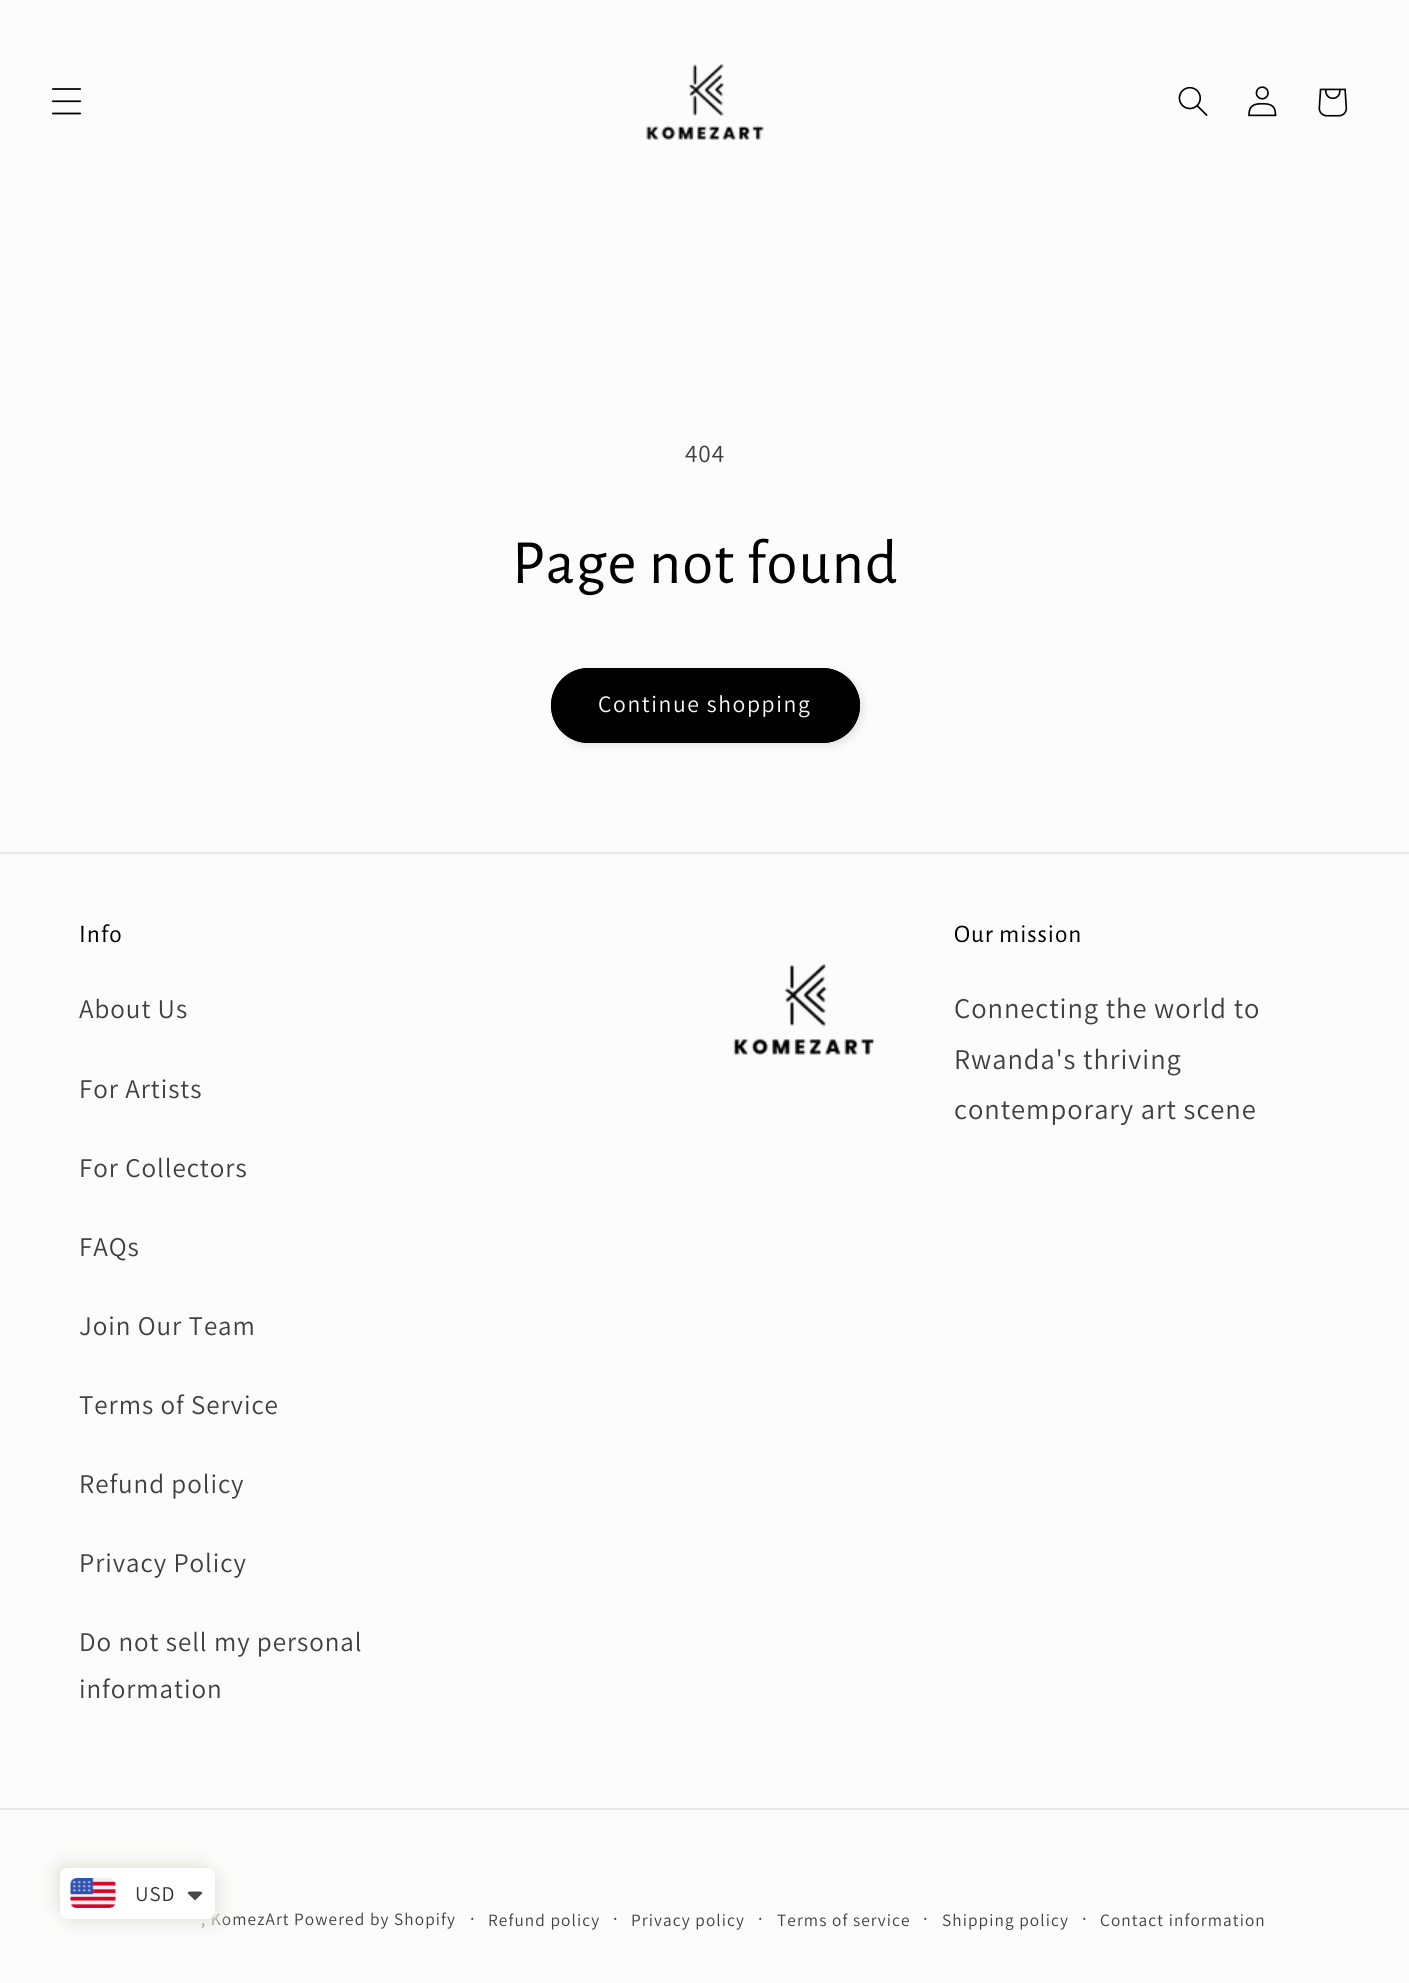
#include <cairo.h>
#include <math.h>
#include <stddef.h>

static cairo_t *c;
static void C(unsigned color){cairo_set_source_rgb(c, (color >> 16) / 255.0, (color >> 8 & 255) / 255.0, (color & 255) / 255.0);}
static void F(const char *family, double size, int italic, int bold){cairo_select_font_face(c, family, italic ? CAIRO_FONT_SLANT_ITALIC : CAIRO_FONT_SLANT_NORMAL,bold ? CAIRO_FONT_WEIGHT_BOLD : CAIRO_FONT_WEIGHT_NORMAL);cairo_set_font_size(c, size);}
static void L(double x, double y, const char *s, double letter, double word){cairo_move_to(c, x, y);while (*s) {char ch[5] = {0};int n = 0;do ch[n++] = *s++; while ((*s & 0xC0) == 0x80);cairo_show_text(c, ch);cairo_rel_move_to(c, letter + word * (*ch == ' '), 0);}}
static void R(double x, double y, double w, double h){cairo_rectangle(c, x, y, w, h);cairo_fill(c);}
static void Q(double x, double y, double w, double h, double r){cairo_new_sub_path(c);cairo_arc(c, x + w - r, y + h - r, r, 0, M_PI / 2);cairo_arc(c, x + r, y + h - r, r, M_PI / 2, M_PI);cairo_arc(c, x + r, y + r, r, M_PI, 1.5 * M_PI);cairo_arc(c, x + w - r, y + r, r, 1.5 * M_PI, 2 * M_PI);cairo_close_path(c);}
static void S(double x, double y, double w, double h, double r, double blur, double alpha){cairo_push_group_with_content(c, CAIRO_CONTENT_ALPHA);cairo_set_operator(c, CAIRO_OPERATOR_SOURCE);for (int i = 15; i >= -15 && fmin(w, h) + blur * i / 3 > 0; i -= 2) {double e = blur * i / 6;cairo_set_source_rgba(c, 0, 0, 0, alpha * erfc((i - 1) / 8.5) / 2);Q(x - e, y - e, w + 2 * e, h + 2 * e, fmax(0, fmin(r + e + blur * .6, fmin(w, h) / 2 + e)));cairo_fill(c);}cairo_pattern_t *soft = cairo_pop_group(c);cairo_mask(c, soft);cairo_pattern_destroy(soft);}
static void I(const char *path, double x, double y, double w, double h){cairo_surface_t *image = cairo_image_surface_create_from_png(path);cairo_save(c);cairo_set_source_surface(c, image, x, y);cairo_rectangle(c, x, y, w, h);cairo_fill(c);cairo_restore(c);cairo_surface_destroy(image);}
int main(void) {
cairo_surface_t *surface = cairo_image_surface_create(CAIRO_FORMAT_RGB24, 1409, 1983);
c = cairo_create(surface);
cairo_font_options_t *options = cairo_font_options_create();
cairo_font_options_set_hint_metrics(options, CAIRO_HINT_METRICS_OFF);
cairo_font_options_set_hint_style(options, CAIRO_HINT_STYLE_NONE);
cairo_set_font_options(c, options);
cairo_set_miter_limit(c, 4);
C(0xfcfcfc);
cairo_paint(c);
I("1.png",51,88,31,27);
I("2.png",646,64,118,76);
I("3.png",1178,86,30,30);
I("4.png",1248,86,29,31);
I("5.png",1318,88,30,29);
F("Assistant",25.25,0,0);
C(0x3f3f3f);
L(685,462,"404",.95,0);
F("Alegreya Sans",63,0,0);
C(0x000000);
L(512,583,"Page not found",.95,0);
C(0x000000);
S(554,671,309,75,37.5,4,.1);
C(0x000000);
Q(551,668,309,75,37.5);
cairo_fill(c);
Q(552,669,307,73,36.5);
cairo_stroke(c);
F("Assistant",23.6,0,0);
C(0xfcfcfc);
L(598,712,"Continue shopping",1.6,0);
C(0xe8e8e8);
R(0,852,1409,2);
F("Alegreya Sans",25.25,0,0);
C(0x000000);
L(79,942,"Info",.95,0);
F("Assistant",27,0,0);
C(0x3f3f3f);
L(79,1018,"About Us",.95,0);
L(79,1098,"For Artists",.95,0);
L(79,1177,"For Collectors",.95,0);
L(79,1256,"FAQs",.95,0);
L(79,1335,"Join Our Team",.95,0);
L(79,1414,"Terms of Service",.95,0);
L(79,1493,"Refund policy",.95,0);
L(79,1572,"Privacy Policy",.95,0);
L(79,1651,"Do not sell my personal",.95,0);
L(79,1698,"information",.95,0);
I("6.png",733,964,142,91);
F("Alegreya Sans",25.25,0,0);
C(0x000000);
L(954,942,"Our mission",.95,0);
F("Assistant",28.5,0,0);
C(0x3f3f3f);
L(954,1018,"Connecting the world to",.95,0);
L(954,1069,"Rwanda's thriving",.95,0);
L(954,1119,"contemporary art scene",.95,0);
C(0xe8e8e8);
R(0,1808,1409,2);
F("Assistant",17.25,0,0);
C(0x3f3f3f);
L(201,1925,", KomezArt",1.1,0);
L(294,1925,"Powered by Shopify",1.1,0);
F("Assistant",19,0,0);
L(470,1925,"·",1.1,0);
F("Assistant",17.25,0,0);
L(488,1926,"Refund policy",1.1,0);
F("Assistant",19,0,0);
L(613,1925,"·",1.1,0);
F("Assistant",17.25,0,0);
L(631,1926,"Privacy policy",1.1,0);
F("Assistant",19,0,0);
L(758,1925,"·",1.1,0);
F("Assistant",17.25,0,0);
L(777,1926,"Terms of service",1.1,0);
F("Assistant",19,0,0);
L(923,1925,"·",1.1,0);
F("Assistant",17.25,0,0);
L(942,1926,"Shipping policy",1.1,0);
F("Assistant",19,0,0);
L(1082,1925,"·",1.1,0);
F("Assistant",17.25,0,0);
L(1100,1926,"Contact information",1.1,0);
C(0xe8e8e2);
S(54,1862,155,51,8,7,1);
S(66,1874,155,51,8,7,1);
C(0xffffff);
Q(60,1868,155,51,8);
cairo_fill(c);
I("7.png",70,1878,46,30);
F("Assistant",21,0,0);
C(0x333333);
L(135,1901,"USD",.95,0);
C(0x474942);
cairo_new_path(c);
cairo_move_to(c,190.5,1891.5);
cairo_curve_to(c,189,1891.5,188,1892,187.5,1893);
cairo_line_to(c,195,1900.5);
cairo_line_to(c,202.5,1893);
cairo_curve_to(c,202,1892,201,1891.5,199.5,1891.5);
cairo_close_path(c);
cairo_fill(c);
cairo_surface_write_to_png(surface, "o.png");
cairo_font_options_destroy(options);
cairo_destroy(c);
cairo_surface_destroy(surface);
return 0;
}
